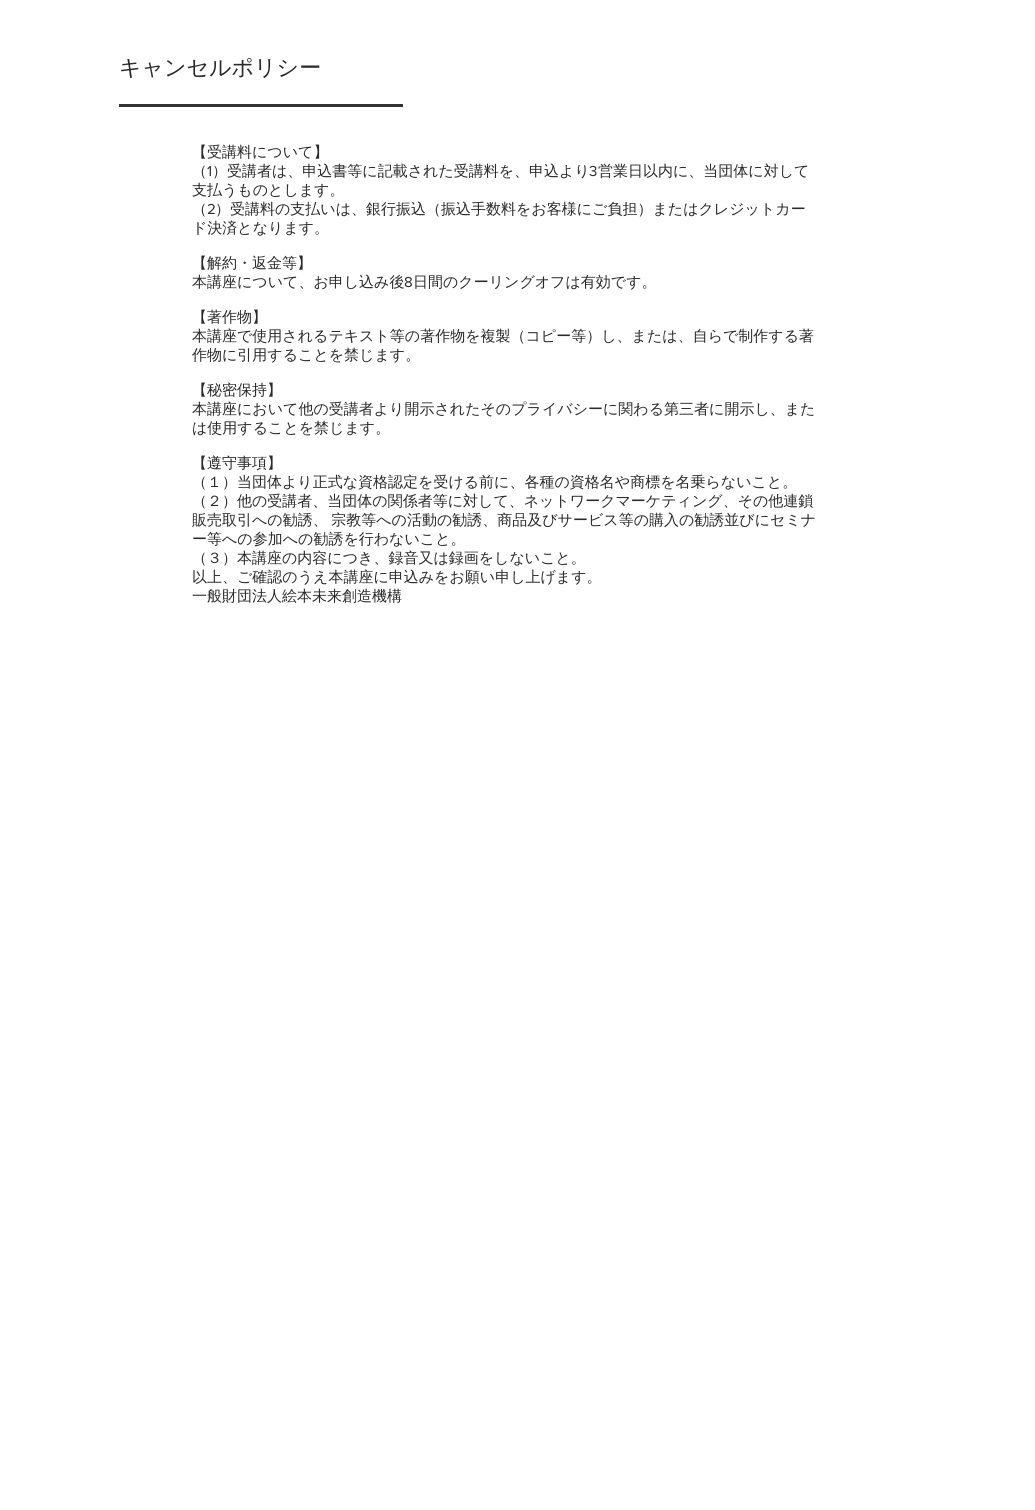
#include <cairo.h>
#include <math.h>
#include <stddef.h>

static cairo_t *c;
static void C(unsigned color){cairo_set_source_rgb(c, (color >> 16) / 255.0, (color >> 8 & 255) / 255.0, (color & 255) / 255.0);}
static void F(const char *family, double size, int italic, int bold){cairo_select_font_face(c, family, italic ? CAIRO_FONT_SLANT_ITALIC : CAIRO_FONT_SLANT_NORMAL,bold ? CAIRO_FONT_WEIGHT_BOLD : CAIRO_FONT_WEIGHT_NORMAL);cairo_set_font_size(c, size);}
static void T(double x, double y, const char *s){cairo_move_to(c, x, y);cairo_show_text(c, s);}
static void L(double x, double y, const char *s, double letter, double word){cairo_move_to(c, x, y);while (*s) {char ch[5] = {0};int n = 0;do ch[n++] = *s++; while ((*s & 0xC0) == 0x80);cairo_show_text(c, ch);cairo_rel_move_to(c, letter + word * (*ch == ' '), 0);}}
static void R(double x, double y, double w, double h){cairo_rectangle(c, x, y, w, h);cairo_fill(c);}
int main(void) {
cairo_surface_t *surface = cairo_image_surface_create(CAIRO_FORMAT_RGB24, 1035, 1510);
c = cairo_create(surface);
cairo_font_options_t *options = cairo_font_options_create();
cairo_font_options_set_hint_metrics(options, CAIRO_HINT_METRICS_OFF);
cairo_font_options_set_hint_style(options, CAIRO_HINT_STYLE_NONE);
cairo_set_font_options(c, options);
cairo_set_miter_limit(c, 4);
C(0xffffff);
cairo_paint(c);
F("WenQuanYi Zen Hei Medium",22,0,0);
C(0x2a2a2a);
T(119,75,"キャンセルポリシー");
C(0x333333);
R(119,104,284,3);
F("WenQuanYi Zen Hei Medium",15,0,0);
C(0x2a2a2a);
T(192,157,"【受講料について】");
T(192,176,"（");
F("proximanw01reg",15,0,0);
T(207,176,"1");
F("WenQuanYi Zen Hei Medium",15,0,0);
T(212,176,"）受講者は、申込書等に記載された受講料を、申込より");
F("proximanw01reg",15,0,0);
T(589,176,"3");
F("WenQuanYi Zen Hei Medium",15,0,0);
T(598,176,"営業日以内に、当団体に対して");
T(192,195,"支払うものとします。");
T(192,214,"（");
F("proximanw01reg",15,0,0);
T(207,214,"2");
F("WenQuanYi Zen Hei Medium",15,0,0);
T(215,214,"）受講料の支払いは、銀行振込（振込手数料をお客様にご負担）またはクレジットカー");
T(192,233,"ド決済となります。");
T(192,268,"【解約・返金等】");
T(192,287,"本講座について、お申し込み後");
F("proximanw01reg",15,0,0);
T(404,287,"8");
F("WenQuanYi Zen Hei Medium",15,0,0);
T(413,287,"日間のクーリングオフは有効です。");
T(192,322,"【著作物】");
T(192,341,"本講座で使用されるテキスト等の著作物を複製（コピー等）し、または、自らで制作する著");
T(192,360,"作物に引用することを禁じます。");
T(192,395,"【秘密保持】");
T(192,414,"本講座において他の受講者より開示されたそのプライバシーに関わる第三者に開示し、また");
T(192,433,"は使用することを禁じます。");
T(192,468,"【遵守事項】");
T(192,487,"（１）当団体より正式な資格認定を受ける前に、各種の資格名や商標を名乗らないこと。");
T(192,506,"（２）他の受講者、当団体の関係者等に対して、ネットワークマーケティング、その他連鎖");
L(192,525,"販売取引への勧誘、 宗教等への活動の勧誘、商品及びサービス等の購入の勧誘並びにセミナ",0,-1);
T(192,544,"ー等への参加への勧誘を行わないこと。");
T(192,563,"（３）本講座の内容につき、録音又は録画をしないこと。");
T(192,582,"以上、ご確認のうえ本講座に申込みをお願い申し上げます。");
T(192,601,"一般財団法人絵本未来創造機構");
cairo_surface_write_to_png(surface, "o.png");
cairo_font_options_destroy(options);
cairo_destroy(c);
cairo_surface_destroy(surface);
return 0;
}
